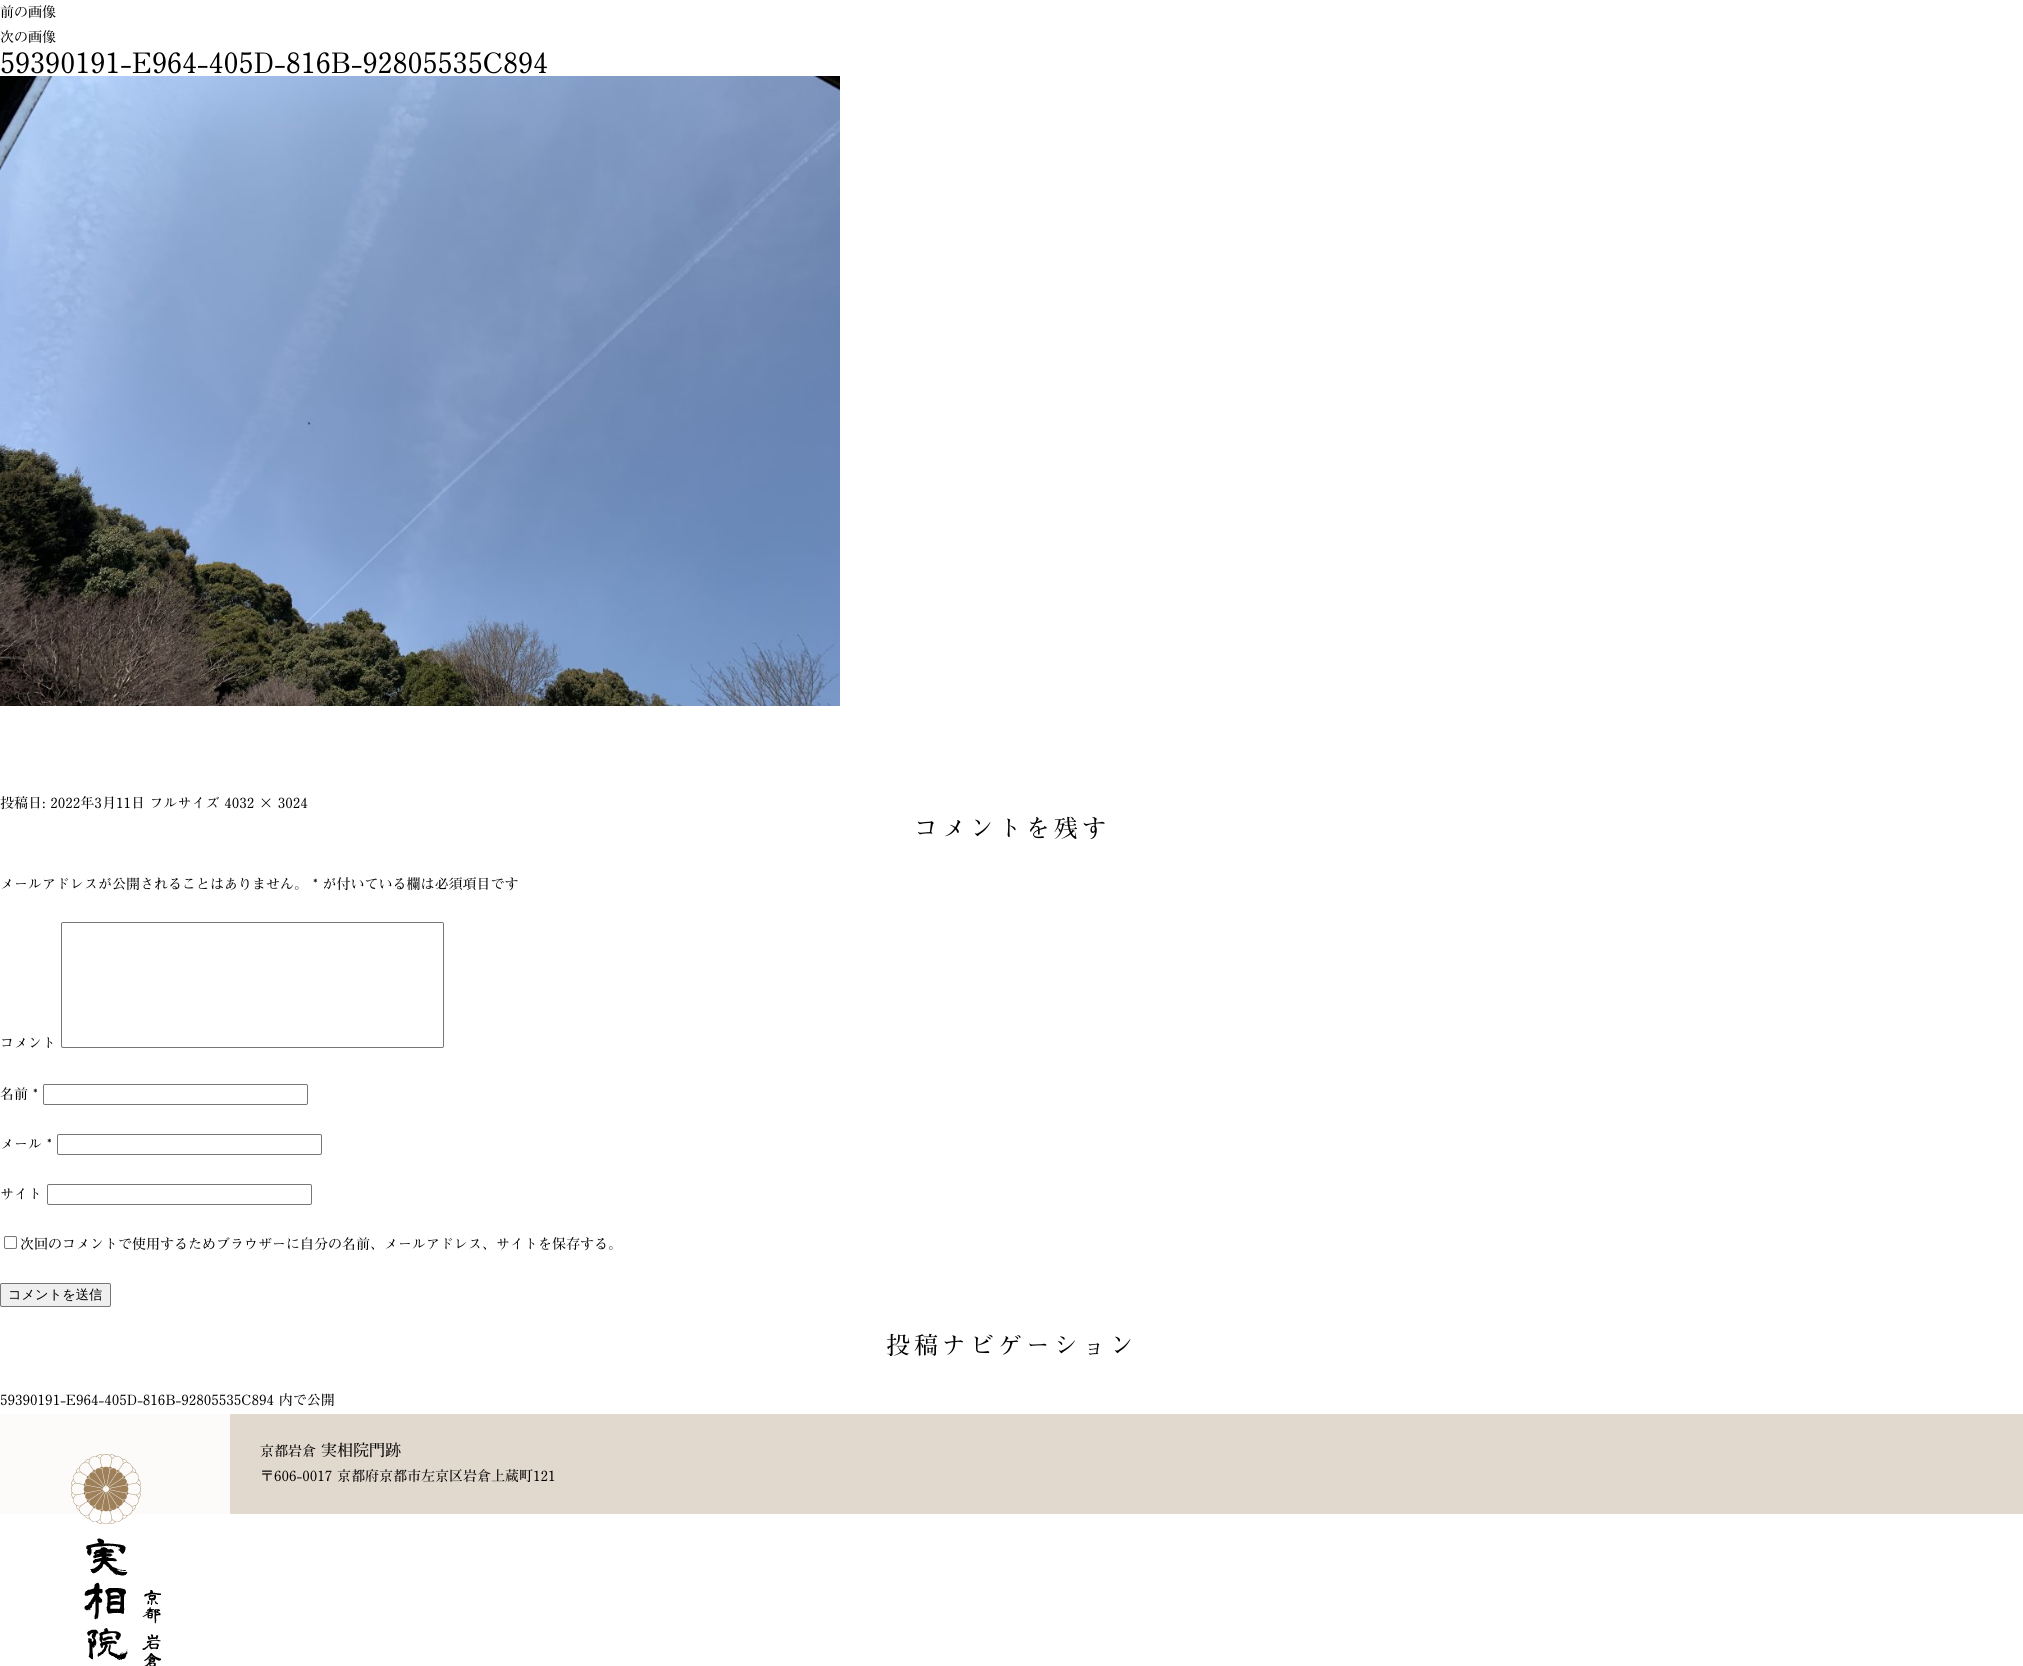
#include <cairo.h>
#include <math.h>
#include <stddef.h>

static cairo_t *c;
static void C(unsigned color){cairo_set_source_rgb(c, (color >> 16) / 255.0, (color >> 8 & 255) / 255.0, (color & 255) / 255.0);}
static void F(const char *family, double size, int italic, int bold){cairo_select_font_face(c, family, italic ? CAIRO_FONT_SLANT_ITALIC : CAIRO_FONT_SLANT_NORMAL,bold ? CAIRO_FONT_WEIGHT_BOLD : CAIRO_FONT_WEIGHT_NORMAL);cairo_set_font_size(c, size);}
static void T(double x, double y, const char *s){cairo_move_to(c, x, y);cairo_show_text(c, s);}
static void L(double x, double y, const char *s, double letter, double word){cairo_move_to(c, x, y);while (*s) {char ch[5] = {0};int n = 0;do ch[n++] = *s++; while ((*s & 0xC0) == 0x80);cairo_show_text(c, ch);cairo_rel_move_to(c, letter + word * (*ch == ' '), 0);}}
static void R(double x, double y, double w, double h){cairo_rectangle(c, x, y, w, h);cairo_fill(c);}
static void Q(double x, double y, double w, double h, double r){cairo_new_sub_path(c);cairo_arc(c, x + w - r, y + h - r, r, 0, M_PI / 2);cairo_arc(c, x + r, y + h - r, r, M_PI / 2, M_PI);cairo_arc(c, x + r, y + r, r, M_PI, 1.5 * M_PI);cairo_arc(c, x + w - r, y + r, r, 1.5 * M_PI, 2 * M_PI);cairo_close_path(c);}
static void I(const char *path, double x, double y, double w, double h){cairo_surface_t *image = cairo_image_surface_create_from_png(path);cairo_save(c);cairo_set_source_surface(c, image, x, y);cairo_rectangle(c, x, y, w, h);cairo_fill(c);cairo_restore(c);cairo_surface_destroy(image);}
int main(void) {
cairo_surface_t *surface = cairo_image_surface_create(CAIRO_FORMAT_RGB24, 2023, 1666);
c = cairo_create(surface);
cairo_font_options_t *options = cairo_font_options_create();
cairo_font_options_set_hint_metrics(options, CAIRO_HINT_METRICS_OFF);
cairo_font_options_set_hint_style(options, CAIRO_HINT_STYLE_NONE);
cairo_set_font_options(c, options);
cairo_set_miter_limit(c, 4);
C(0xffffff);
cairo_paint(c);
F("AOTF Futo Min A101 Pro",14,0,1);
C(0x000000);
T(0,17,"前の画像");
T(0,42,"次の画像");
F("AOTF Futo Min A101 Pro",28,0,1);
T(0,73,"59390191-E964-405D-816B-92805535C894");
I("1.png",0,76,840,630);
F("AOTF Futo Min A101 Pro",14,0,1);
T(0,808,"投稿日: 2022年3月11日 フルサイズ 4032 × 3024");
F("AOTF Futo Min A101 Pro",24,0,1);
L(914,837,"コメントを残す",4,0);
F("AOTF Futo Min A101 Pro",14,0,1);
T(0,889,"メールアドレスが公開されることはありません。 * が付いている欄は必須項目です");
T(0,1048,"コメント");
Q(61.5,922.5,382,125,1.5);
C(0x767676);
cairo_set_line_width(c,1);
cairo_stroke(c);
C(0x000000);
T(0,1099,"名前 *");
Q(43.5,1084.5,264,20,1.5);
C(0x767676);
cairo_stroke(c);
C(0x000000);
T(0,1149,"メール *");
Q(57.5,1134.5,264,20,1.5);
C(0x767676);
cairo_stroke(c);
C(0x000000);
T(0,1199,"サイト");
Q(47.5,1184.5,264,20,1.5);
C(0x767676);
cairo_stroke(c);
Q(4.5,1236.5,12,12,1.5);
cairo_stroke(c);
C(0x000000);
T(20,1249,"次回のコメントで使用するためブラウザーに自分の名前、メールアドレス、サイトを保存する。");
C(0xefefef);
Q(.5,1283.5,110,23,1.5);
cairo_fill_preserve(c);
C(0x767676);
cairo_stroke(c);
F("WenQuanYi Zen Hei Medium",13.25,0,0);
C(0x000000);
T(8,1299,"コメントを送信");
F("AOTF Futo Min A101 Pro",24,0,1);
L(886,1354,"投稿ナビゲーション",4,0);
F("AOTF Futo Min A101 Pro",14,0,1);
T(0,1405,"59390191-E964-405D-816B-92805535C894 内で公開");
C(0xfcfbfa);
R(0,1414,230,100);
I("2.png",71,1454,90,212);
C(0xe2d9ce);
R(230,1414,1793,100);
C(0x000000);
T(260,1456,"京都岩倉");
F("AOTF Futo Min A101 Pro",16,0,1);
T(321,1456,"実相院門跡");
F("AOTF Futo Min A101 Pro",14,0,1);
T(260,1481,"〒606-0017 京都府京都市左京区岩倉上蔵町121");
cairo_surface_write_to_png(surface, "o.png");
cairo_font_options_destroy(options);
cairo_destroy(c);
cairo_surface_destroy(surface);
return 0;
}
